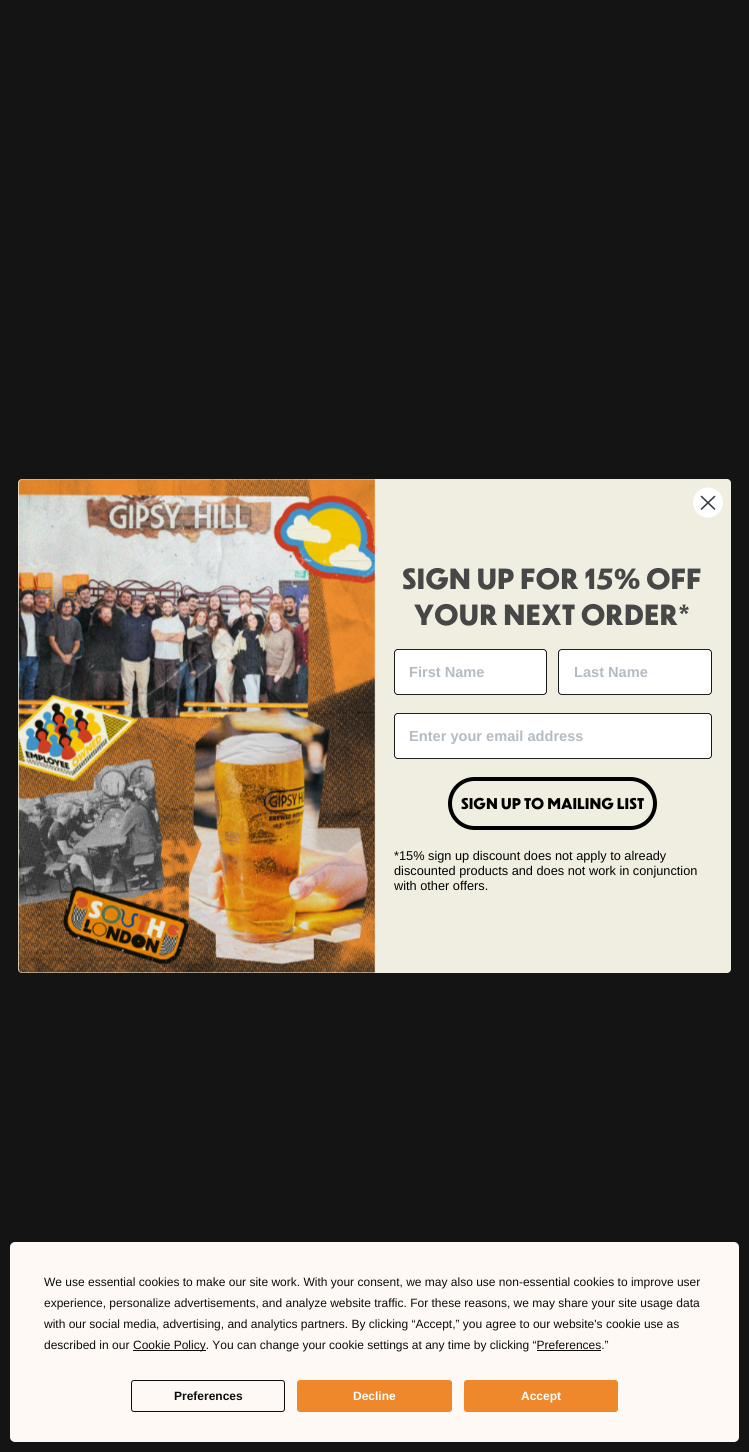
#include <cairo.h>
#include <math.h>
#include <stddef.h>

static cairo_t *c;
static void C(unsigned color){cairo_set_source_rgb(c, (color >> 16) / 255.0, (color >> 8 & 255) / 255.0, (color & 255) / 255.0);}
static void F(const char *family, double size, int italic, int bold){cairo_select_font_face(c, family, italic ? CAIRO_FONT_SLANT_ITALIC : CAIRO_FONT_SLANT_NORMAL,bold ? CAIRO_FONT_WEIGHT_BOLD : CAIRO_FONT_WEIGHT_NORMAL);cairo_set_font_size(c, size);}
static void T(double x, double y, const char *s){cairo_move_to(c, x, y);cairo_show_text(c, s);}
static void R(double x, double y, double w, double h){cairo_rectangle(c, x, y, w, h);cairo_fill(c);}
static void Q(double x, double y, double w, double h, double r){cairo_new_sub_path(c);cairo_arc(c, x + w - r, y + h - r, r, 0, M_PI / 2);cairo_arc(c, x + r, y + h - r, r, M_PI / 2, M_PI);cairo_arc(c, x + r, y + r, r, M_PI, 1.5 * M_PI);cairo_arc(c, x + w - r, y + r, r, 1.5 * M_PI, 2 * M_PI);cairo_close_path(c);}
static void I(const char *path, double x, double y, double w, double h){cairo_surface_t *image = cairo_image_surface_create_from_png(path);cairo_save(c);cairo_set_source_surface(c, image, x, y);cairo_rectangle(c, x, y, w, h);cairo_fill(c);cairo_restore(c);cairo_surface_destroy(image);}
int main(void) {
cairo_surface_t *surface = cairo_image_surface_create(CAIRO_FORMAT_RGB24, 749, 1452);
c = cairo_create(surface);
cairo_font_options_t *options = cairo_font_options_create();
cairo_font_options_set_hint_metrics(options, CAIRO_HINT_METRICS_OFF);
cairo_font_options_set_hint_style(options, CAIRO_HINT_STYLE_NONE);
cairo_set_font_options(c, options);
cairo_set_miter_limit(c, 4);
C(0x141414);
cairo_paint(c);
C(0xefeee0);
Q(18,479,713,494,4);
cairo_fill(c);
C(0xffffff);
cairo_arc(c,708,502.5,15,0,2 * M_PI);
cairo_fill(c);
cairo_new_path(c);
cairo_move_to(c,701.5,496.5);
cairo_line_to(c,714.5,509);
cairo_move_to(c,701.5,509);
cairo_line_to(c,714.5,496.5);
cairo_close_path(c);
C(0x373f47);
cairo_set_line_width(c,1.6);
cairo_set_line_cap(c,CAIRO_LINE_CAP_ROUND);
cairo_set_line_join(c,CAIRO_LINE_JOIN_ROUND);
cairo_stroke(c);
I("1.png",18,479,358,494);
F("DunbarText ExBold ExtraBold",27.4,0,0);
C(0x474747);
T(402,589,"SIGN UP FOR 15% OFF");
T(414,625,"YOUR NEXT ORDER*");
C(0xffffff);
Q(394.45,649.45,152.1,45.1,3.55);
cairo_fill_preserve(c);
C(0x000000);
cairo_set_line_width(c,.9);
cairo_set_line_cap(c,CAIRO_LINE_CAP_BUTT);
cairo_set_line_join(c,CAIRO_LINE_JOIN_MITER);
cairo_stroke(c);
F("Liberation Sans",14.6,0,1);
C(0xb4bbc3);
T(409,677,"First Name");
C(0xffffff);
Q(558.45,649.45,153.1,45.1,3.55);
cairo_fill_preserve(c);
C(0x000000);
cairo_stroke(c);
C(0xb4bbc3);
T(574,677,"Last Name");
C(0xffffff);
Q(394.45,713.45,317.1,45.1,3.55);
cairo_fill_preserve(c);
C(0x000000);
cairo_stroke(c);
C(0xb4bbc3);
T(409,741,"Enter your email address");
Q(450,779,205,49,24.5);
C(0x000000);
cairo_set_line_width(c,4);
cairo_stroke(c);
F("DunbarText ExBold ExtraBold",14.6,0,0);
T(461,809,"SIGN UP TO MAILING LIST");
F("Liberation Sans",12.75,0,0);
T(394,860,"*15% sign up discount does not apply to already");
T(394,875,"discounted products and does not work in conjunction");
T(394,890,"with other offers.");
C(0xfef9f4);
Q(10,1242,729,200,5);
cairo_fill(c);
F("Liberation Sans",12,0,0);
C(0x0c0c0c);
T(44,1286,"We use essential cookies to make our site work. With your consent, we may also use non-essential cookies to improve user");
T(44,1307,"experience, personalize advertisements, and analyze website traffic. For these reasons, we may share your site usage data");
T(44,1328,"with our social media, advertising, and analytics partners. By clicking “Accept,” you agree to our website's cookie use as");
T(44,1349,"described in our");
R(133,1350,73,1);
T(133,1349,"Cookie Policy. You can change your cookie settings at any time by clicking “Preferences.”");
R(537,1350,64,1);
Q(131.5,1380.5,153,31,2.5);
cairo_set_line_width(c,1);
cairo_stroke(c);
F("Liberation Sans",12,0,1);
T(174,1400,"Preferences");
C(0xee882b);
Q(297.5,1380.5,154,31,2.5);
cairo_fill_preserve(c);
cairo_stroke(c);
C(0xffffff);
T(353,1400,"Decline");
C(0xee882b);
Q(464.5,1380.5,153,31,2.5);
cairo_fill_preserve(c);
cairo_stroke(c);
C(0xffffff);
T(521,1400,"Accept");
cairo_surface_write_to_png(surface, "o.png");
cairo_font_options_destroy(options);
cairo_destroy(c);
cairo_surface_destroy(surface);
return 0;
}
